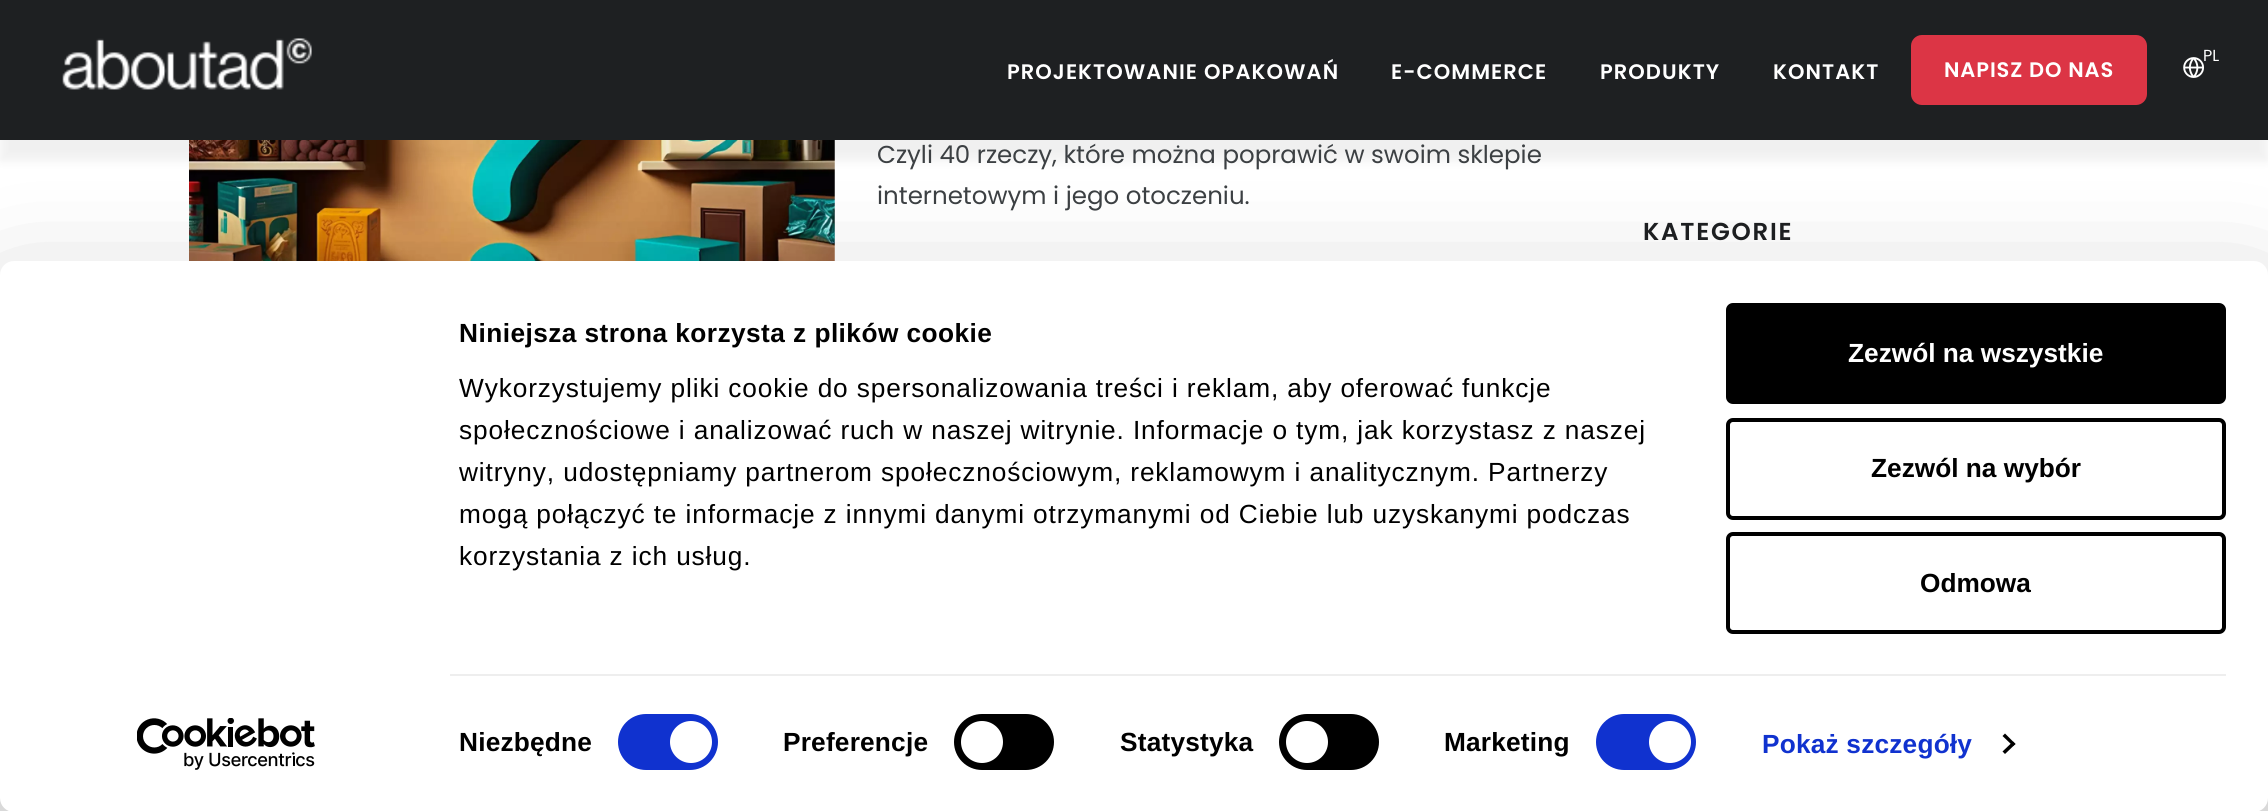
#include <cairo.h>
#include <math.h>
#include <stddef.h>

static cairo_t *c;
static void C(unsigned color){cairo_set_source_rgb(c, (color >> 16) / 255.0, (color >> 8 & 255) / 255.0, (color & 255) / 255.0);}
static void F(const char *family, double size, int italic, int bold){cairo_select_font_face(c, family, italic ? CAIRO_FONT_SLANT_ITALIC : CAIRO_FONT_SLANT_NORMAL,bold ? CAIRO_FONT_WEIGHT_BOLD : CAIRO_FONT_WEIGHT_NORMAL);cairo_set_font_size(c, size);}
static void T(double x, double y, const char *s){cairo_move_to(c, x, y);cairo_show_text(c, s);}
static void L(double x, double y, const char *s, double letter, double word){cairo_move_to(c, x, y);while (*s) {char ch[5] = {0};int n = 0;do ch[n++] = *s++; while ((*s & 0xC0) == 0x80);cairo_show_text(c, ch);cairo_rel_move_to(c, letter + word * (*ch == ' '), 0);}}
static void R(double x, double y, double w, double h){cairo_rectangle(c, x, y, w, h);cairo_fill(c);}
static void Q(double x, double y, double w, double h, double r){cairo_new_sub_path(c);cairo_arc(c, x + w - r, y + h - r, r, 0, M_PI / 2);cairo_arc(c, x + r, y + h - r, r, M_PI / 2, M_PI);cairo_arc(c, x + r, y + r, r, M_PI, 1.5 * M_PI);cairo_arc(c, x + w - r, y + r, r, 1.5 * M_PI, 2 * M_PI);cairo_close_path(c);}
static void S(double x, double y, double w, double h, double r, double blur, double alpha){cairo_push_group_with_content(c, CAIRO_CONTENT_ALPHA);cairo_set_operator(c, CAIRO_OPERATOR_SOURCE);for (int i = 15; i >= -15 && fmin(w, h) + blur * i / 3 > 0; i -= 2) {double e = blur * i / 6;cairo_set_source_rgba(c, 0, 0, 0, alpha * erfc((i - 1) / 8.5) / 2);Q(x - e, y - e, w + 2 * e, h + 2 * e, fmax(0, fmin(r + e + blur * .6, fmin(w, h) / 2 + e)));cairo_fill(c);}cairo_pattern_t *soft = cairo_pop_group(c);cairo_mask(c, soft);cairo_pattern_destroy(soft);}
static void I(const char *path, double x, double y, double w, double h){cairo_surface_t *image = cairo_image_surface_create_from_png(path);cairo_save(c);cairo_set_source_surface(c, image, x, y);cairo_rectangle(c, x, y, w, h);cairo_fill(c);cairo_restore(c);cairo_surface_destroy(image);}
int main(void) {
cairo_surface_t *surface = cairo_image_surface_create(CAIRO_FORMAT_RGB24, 2268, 811);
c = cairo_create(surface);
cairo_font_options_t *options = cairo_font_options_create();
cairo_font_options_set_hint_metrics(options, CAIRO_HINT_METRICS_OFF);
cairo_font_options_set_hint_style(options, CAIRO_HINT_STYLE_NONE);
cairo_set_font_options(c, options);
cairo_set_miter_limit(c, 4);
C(0xffffff);
cairo_paint(c);
I("3.png",189,140,646,121);
C(0x000000);
S(0,21,2268,140,0,5,.06);
C(0x1e2022);
R(0,0,2268,140);
I("1.png",62,38,250,52);
F("Poppins",16,0,0);
C(0xffffff);
T(2203,61,"PL");
I("2.png",2183,57,21,21);
F("Poppins SemiBold",21,0,0);
L(1007,79,"PROJEKTOWANIE OPAKOWAŃ",1.05,0);
L(1391,79,"E-COMMERCE",1.05,0);
L(1600,79,"PRODUKTY",1.05,0);
L(1773,79,"KONTAKT",1.05,0);
C(0xdc3545);
Q(1912,36,234,68,10);
cairo_fill_preserve(c);
cairo_stroke(c);
C(0xffffff);
L(1944,77,"NAPISZ DO NAS",.88,0);
F("Poppins",24.5,0,0);
C(0x3c4043);
T(877,163,"Czyli 40 rzeczy, które można poprawić w swoim sklepie");
T(877,204,"internetowym i jego otoczeniu.");
F("Poppins SemiBold",24.5,0,0);
C(0x1e2022);
L(1643,240,"KATEGORIE",1.75,0);
C(0x000000);
S(0,313,2268,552,14,61,.3);
C(0xffffff);
Q(0,261,2268,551,14);
cairo_fill(c);
F("Liberation Sans",26.25,0,1);
C(0x000000);
L(459,342,"Niniejsza strona korzysta z plików cookie",.45,0);
F("Liberation Sans",26.25,0,0);
L(459,397,"Wykorzystujemy pliki cookie do spersonalizowania treści i reklam, aby oferować funkcje",.88,0);
L(459,439,"społecznościowe i analizować ruch w naszej witrynie. Informacje o tym, jak korzystasz z naszej",.88,0);
L(459,481,"witryny, udostępniamy partnerom społecznościowym, reklamowym i analitycznym. Partnerzy",.88,0);
L(459,523,"mogą połączyć te informacje z innymi danymi otrzymanymi od Ciebie lub uzyskanymi podczas",.88,0);
L(459,565,"korzystania z ich usług.",.88,0);
C(0xeeeeee);
R(450,674,1776,2);
F("Liberation Sans",26.25,0,1);
C(0x000000);
L(459,751,"Niezbędne",.2,0);
C(0x1032cf);
Q(618,714,100,56,28);
cairo_fill(c);
C(0xffffff);
cairo_arc(c,691,742,21,0,2 * M_PI);
cairo_fill(c);
C(0x000000);
L(783,751,"Preferencje",.2,0);
Q(954,714,100,56,28);
cairo_fill(c);
C(0xffffff);
cairo_arc(c,982,742,21,0,2 * M_PI);
cairo_fill(c);
C(0x000000);
L(1120,751,"Statystyka",.2,0);
Q(1279,714,100,56,28);
cairo_fill(c);
C(0xffffff);
cairo_arc(c,1307,742,21,0,2 * M_PI);
cairo_fill(c);
C(0x000000);
L(1444,751,"Marketing",.2,0);
C(0x1032cf);
Q(1596,714,100,56,28);
cairo_fill(c);
C(0xffffff);
cairo_arc(c,1670,742,21,0,2 * M_PI);
cairo_fill(c);
C(0x1032cf);
L(1762,753,"Pokaż szczegóły",.2,0);
C(0x000000);
cairo_new_path(c);
cairo_move_to(c,2005,733.5);
cairo_line_to(c,2015.5,744);
cairo_line_to(c,2013,746);
cairo_line_to(c,2002.5,736);
cairo_close_path(c);
cairo_fill(c);
cairo_new_path(c);
cairo_move_to(c,2013,741.5);
cairo_line_to(c,2015.5,744);
cairo_line_to(c,2005,754);
cairo_line_to(c,2002.5,751.5);
cairo_close_path(c);
cairo_fill(c);
Q(1728,305,496,97,5);
cairo_fill_preserve(c);
cairo_set_line_width(c,4);
cairo_stroke(c);
C(0xffffff);
T(1848,362,"Zezwól na wszystkie");
Q(1728,420,496,98,5);
C(0x000000);
cairo_stroke(c);
T(1871,477,"Zezwól na wybór");
Q(1728,534,496,98,5);
cairo_stroke(c);
T(1920,592,"Odmowa");
I("4.png",137,718,178,52);
cairo_surface_write_to_png(surface, "o.png");
cairo_font_options_destroy(options);
cairo_destroy(c);
cairo_surface_destroy(surface);
return 0;
}
